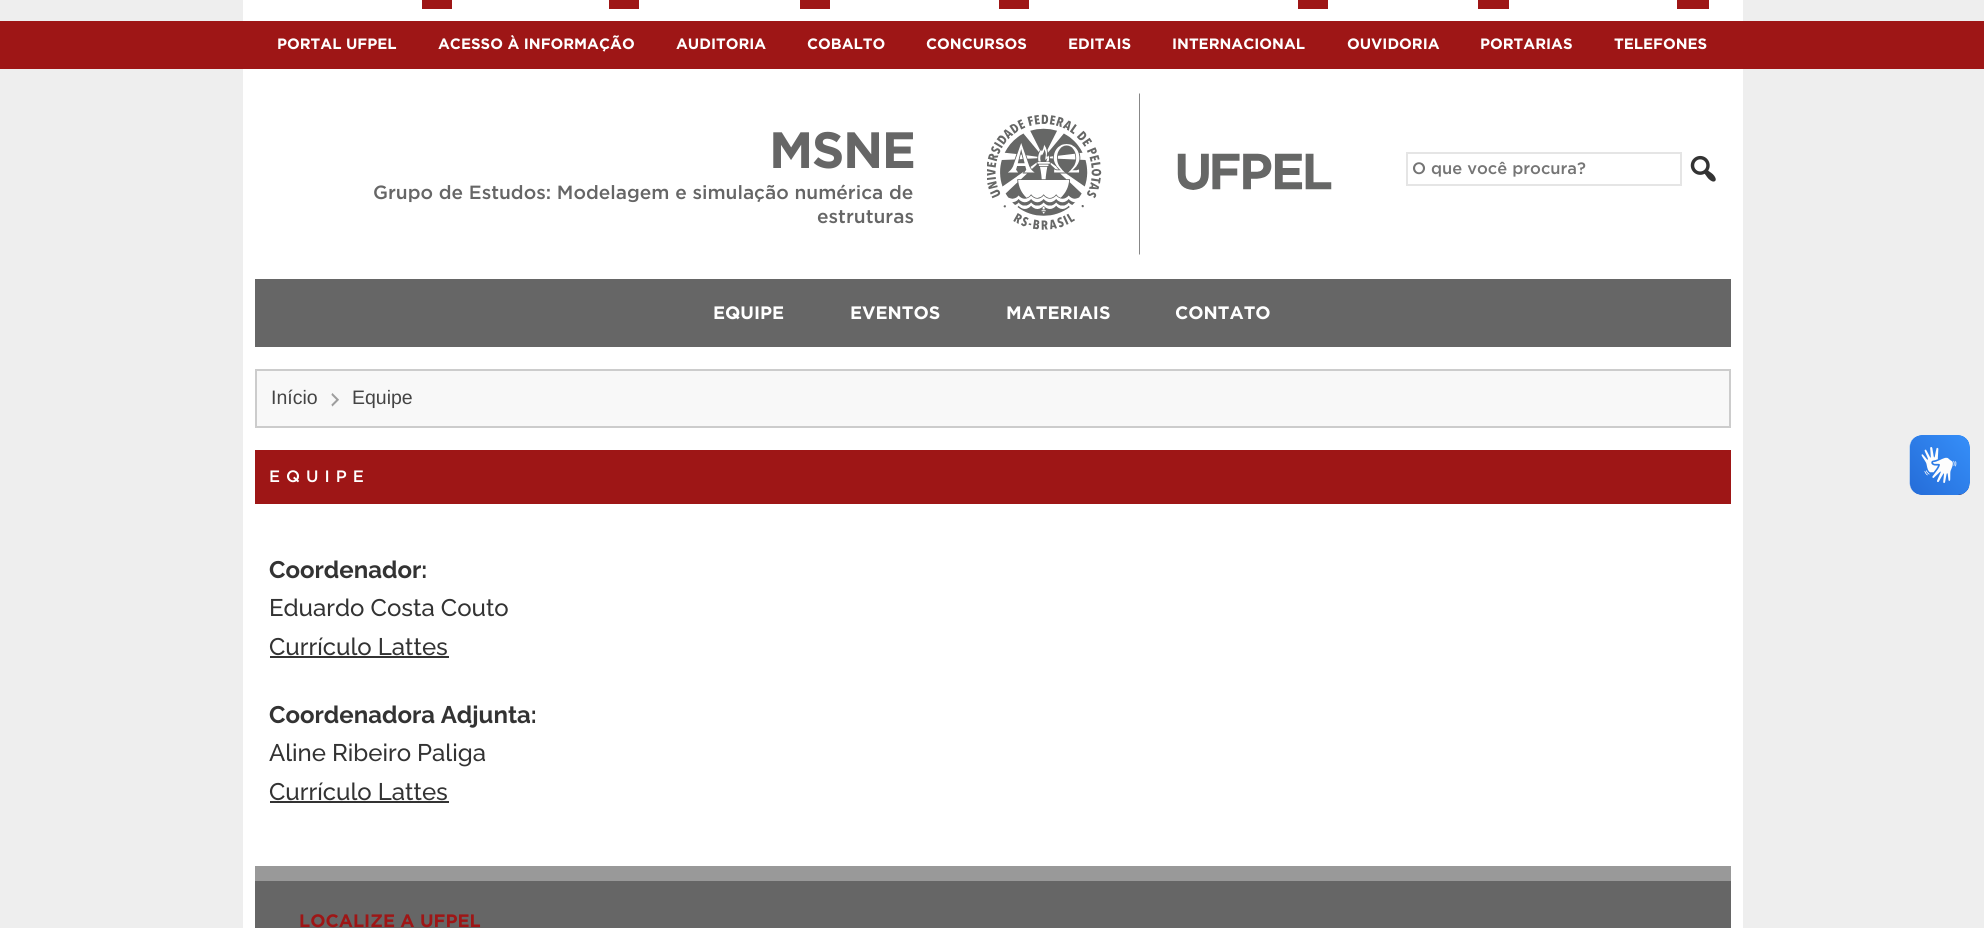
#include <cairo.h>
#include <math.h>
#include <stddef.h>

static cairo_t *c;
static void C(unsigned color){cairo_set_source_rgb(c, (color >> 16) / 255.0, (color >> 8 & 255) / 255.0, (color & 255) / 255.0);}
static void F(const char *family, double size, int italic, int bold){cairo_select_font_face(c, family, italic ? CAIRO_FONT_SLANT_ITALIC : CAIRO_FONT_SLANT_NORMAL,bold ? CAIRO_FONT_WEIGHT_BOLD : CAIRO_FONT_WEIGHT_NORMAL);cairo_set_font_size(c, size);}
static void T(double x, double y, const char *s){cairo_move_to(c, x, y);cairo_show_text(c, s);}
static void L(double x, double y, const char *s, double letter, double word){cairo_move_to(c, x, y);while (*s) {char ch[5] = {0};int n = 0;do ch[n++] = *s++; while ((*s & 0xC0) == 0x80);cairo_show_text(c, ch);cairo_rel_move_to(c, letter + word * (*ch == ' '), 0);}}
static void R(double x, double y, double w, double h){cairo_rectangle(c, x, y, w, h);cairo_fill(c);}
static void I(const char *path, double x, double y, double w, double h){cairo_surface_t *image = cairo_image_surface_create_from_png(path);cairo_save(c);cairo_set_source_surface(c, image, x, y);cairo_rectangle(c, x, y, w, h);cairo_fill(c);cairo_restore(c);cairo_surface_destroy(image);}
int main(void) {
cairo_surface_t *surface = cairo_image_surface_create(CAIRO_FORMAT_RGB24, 1984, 928);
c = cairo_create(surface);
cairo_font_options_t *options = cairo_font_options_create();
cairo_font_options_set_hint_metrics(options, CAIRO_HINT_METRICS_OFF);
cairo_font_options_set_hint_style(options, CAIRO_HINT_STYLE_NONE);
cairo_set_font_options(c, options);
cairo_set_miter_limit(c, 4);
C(0xeeeeee);
cairo_paint(c);
C(0xffffff);
R(243,0,1500,21);
C(0x9e1616);
R(422,0,30,9);
R(609,0,30,9);
R(800,0,30,9);
R(999,0,30,9);
R(1298,0,30,9);
R(1478,0,31,9);
R(1677,0,32,9);
R(0,21,1984,48);
F("Gotham",15,0,1);
C(0xffffff);
T(277,49,"PORTAL UFPEL");
T(438,49,"ACESSO À INFORMAÇÃO");
T(676,49,"AUDITORIA");
T(807,49,"COBALTO");
T(926,49,"CONCURSOS");
T(1068,49,"EDITAIS");
T(1172,49,"INTERNACIONAL");
T(1347,49,"OUVIDORIA");
T(1480,49,"PORTARIAS");
T(1614,49,"TELEFONES");
R(243,69,1500,859);
F("Gotham",51,0,1);
C(0x666666);
L(769,168,"MSNE",-1.5,0);
F("Gotham Medium",19.1,0,0);
T(373,199,"Grupo de Estudos: Modelagem e simulação numérica de");
T(817,223,"estruturas");
I("1.png",987,93,345,162);
cairo_rectangle(c,1407,153,274,32);
C(0xe5e5e5);
cairo_stroke(c);
F("Gotham Medium",16.5,0,0);
C(0x757575);
T(1412,174,"O que você procura?");
I("2.png",1690,155,26,27);
C(0x666666);
R(255,279,1476,68);
F("Gotham",18,0,1);
C(0xffffff);
T(713,319,"EQUIPE");
T(850,319,"EVENTOS");
T(1006,319,"MATERIAIS");
T(1175,319,"CONTATO");
C(0xf8f8f8);
cairo_rectangle(c,256,370,1474,57);
cairo_fill_preserve(c);
C(0xcccccc);
cairo_stroke(c);
F("Liberation Sans",19.5,0,0);
C(0x444444);
T(271,404,"Início");
I("3.png",331,393,8,14);
T(352,404,"Equipe");
C(0x9e1616);
R(255,450,1476,54);
F("Gotham Medium",16.5,0,0);
C(0xffffff);
L(269,482,"EQUIPE",6,0);
F("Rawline",24,0,1);
C(0x333333);
T(269,578,"Coordenador:");
F("Rawline Medium",24,0,0);
T(269,616,"Eduardo Costa Couto");
T(269,655,"Currículo Lattes");
R(270,656,179,2);
F("Rawline",24,0,1);
T(269,723,"Coordenadora Adjunta:");
F("Rawline Medium",24,0,0);
T(269,761,"Aline Ribeiro Paliga");
T(269,800,"Currículo Lattes");
R(270,801,179,2);
C(0x666666);
R(255,881,1476,47);
C(0x999999);
R(255,866,1476,15);
F("Gotham",18,0,1);
C(0x9e1616);
T(299,927,"LOCALIZE A UFPEL");
I("4.png",1909,435,61,60);
I("5.png",1910,435,60,60);
cairo_surface_write_to_png(surface, "o.png");
cairo_font_options_destroy(options);
cairo_destroy(c);
cairo_surface_destroy(surface);
return 0;
}
